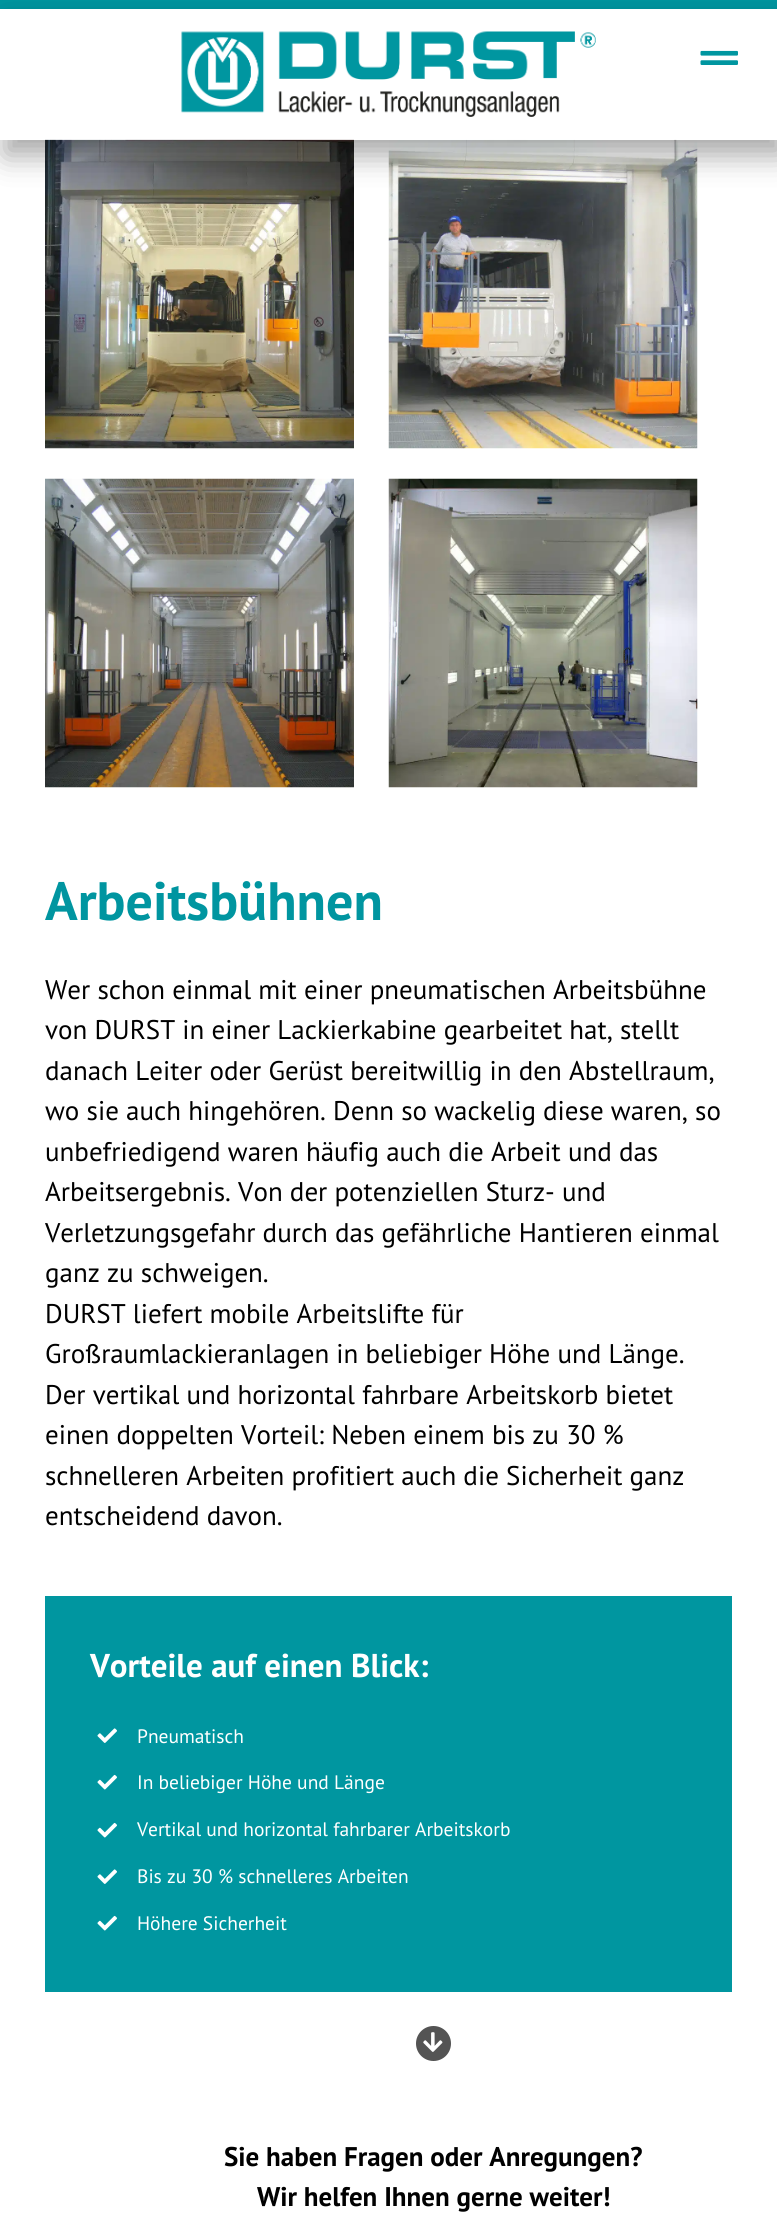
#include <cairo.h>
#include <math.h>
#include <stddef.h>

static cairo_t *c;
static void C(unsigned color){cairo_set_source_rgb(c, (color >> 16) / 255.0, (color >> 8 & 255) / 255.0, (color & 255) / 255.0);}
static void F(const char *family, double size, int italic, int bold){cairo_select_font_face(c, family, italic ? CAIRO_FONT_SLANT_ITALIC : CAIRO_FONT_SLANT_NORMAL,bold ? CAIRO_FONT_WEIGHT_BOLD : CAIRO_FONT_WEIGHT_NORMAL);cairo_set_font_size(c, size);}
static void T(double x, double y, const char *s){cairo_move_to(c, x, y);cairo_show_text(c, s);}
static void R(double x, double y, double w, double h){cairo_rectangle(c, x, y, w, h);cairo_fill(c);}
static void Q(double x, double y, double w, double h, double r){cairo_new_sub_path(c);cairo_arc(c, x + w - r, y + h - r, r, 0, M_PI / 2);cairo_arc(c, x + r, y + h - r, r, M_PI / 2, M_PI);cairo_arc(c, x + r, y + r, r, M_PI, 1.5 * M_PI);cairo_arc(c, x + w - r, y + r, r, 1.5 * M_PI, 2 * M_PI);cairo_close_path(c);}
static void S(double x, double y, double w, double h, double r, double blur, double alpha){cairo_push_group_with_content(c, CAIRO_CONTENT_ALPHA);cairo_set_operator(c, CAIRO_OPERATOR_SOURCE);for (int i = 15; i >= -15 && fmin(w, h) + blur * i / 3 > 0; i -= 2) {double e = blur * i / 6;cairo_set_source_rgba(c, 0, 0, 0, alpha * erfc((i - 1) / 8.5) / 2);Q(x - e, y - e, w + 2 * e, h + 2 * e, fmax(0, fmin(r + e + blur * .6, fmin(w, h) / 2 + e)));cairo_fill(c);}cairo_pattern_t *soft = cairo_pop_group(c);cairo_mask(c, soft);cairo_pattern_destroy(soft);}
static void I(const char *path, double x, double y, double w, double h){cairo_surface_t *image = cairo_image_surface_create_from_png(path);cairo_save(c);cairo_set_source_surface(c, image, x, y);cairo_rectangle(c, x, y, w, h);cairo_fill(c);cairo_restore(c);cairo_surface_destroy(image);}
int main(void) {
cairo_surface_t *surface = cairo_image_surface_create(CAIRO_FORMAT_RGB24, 777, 2240);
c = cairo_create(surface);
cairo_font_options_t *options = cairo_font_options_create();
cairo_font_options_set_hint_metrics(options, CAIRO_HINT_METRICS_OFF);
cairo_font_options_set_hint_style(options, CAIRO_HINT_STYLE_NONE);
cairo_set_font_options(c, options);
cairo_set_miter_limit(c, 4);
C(0xffffff);
cairo_paint(c);
C(0x0096a0);
R(0,0,777,9);
I("3.png",45,139,309,310);
I("4.png",388,139,310,310);
cairo_save(c);
cairo_set_fill_rule(c,CAIRO_FILL_RULE_EVEN_ODD);
cairo_new_path(c);
cairo_move_to(c,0,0);
cairo_line_to(c,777,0);
cairo_line_to(c,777,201);
cairo_line_to(c,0,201);
cairo_close_path(c);
cairo_move_to(c,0,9);
cairo_line_to(c,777,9);
cairo_line_to(c,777,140);
cairo_line_to(c,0,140);
cairo_close_path(c);
cairo_clip(c);
C(0x000000);
S(5,24,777,131,0,15,.35);
cairo_restore(c);
cairo_set_source_rgba(c,1,1,1,0.5);
R(0,139,777,1);
I("1.png",181,31,415,86);
I("2.png",700,50,38,15);
I("5.png",45,478,309,310);
I("6.png",388,478,310,310);
F("PT Sans",54,0,1);
C(0x0095a0);
T(45,920,"Arbeitsbühnen");
F("PT Sans",27,0,0);
C(0x000000);
T(45,999,"Wer schon einmal mit einer pneumatischen Arbeitsbühne");
T(45,1039,"von DURST in einer Lackierkabine gearbeitet hat, stellt");
T(45,1080,"danach Leiter oder Gerüst bereitwillig in den Abstellraum,");
T(45,1120,"wo sie auch hingehören. Denn so wackelig diese waren, so");
T(45,1161,"unbefriedigend waren häufig auch die Arbeit und das");
T(45,1201,"Arbeitsergebnis. Von der potenziellen Sturz- und");
T(45,1242,"Verletzungsgefahr durch das gefährliche Hantieren einmal");
T(45,1282,"ganz zu schweigen.");
T(45,1323,"DURST liefert mobile Arbeitslifte für");
T(45,1363,"Großraumlackieranlagen in beliebiger Höhe und Länge.");
T(45,1404,"Der vertikal und horizontal fahrbare Arbeitskorb bietet");
T(45,1444,"einen doppelten Vorteil: Neben einem bis zu 30 %");
T(45,1485,"schnelleren Arbeiten profitiert auch die Sicherheit ganz");
T(45,1525,"entscheidend davon.");
C(0x0096a0);
R(45,1596,687,396);
F("PT Sans",33,0,1);
C(0xffffff);
T(90,1677,"Vorteile auf einen Blick:");
I("7.png",97,1728,20,15);
F("PT Sans",19.5,0,0);
T(137,1743,"Pneumatisch");
I("8.png",97,1774,20,16);
T(137,1789,"In beliebiger Höhe und Länge");
I("8.png",97,1822,20,16);
T(137,1836,"Vertikal und horizontal fahrbarer Arbeitskorb");
I("7.png",97,1869,20,15);
T(137,1883,"Bis zu 30 % schnelleres Arbeiten");
I("8.png",97,1915,20,16);
T(137,1930,"Höhere Sicherheit");
C(0x545454);
cairo_new_path(c);
cairo_arc(c,433.5,2043.5,18.5,0,2 * M_PI);
cairo_fill_preserve(c);
C(0xffffff);
cairo_stroke(c);
I("9.png",423,2032,20,20);
F("PT Sans",27,0,1);
C(0x000000);
T(224,2166,"Sie haben Fragen oder Anregungen?");
T(257,2206,"Wir helfen Ihnen gerne weiter!");
cairo_surface_write_to_png(surface, "o.png");
cairo_font_options_destroy(options);
cairo_destroy(c);
cairo_surface_destroy(surface);
return 0;
}
